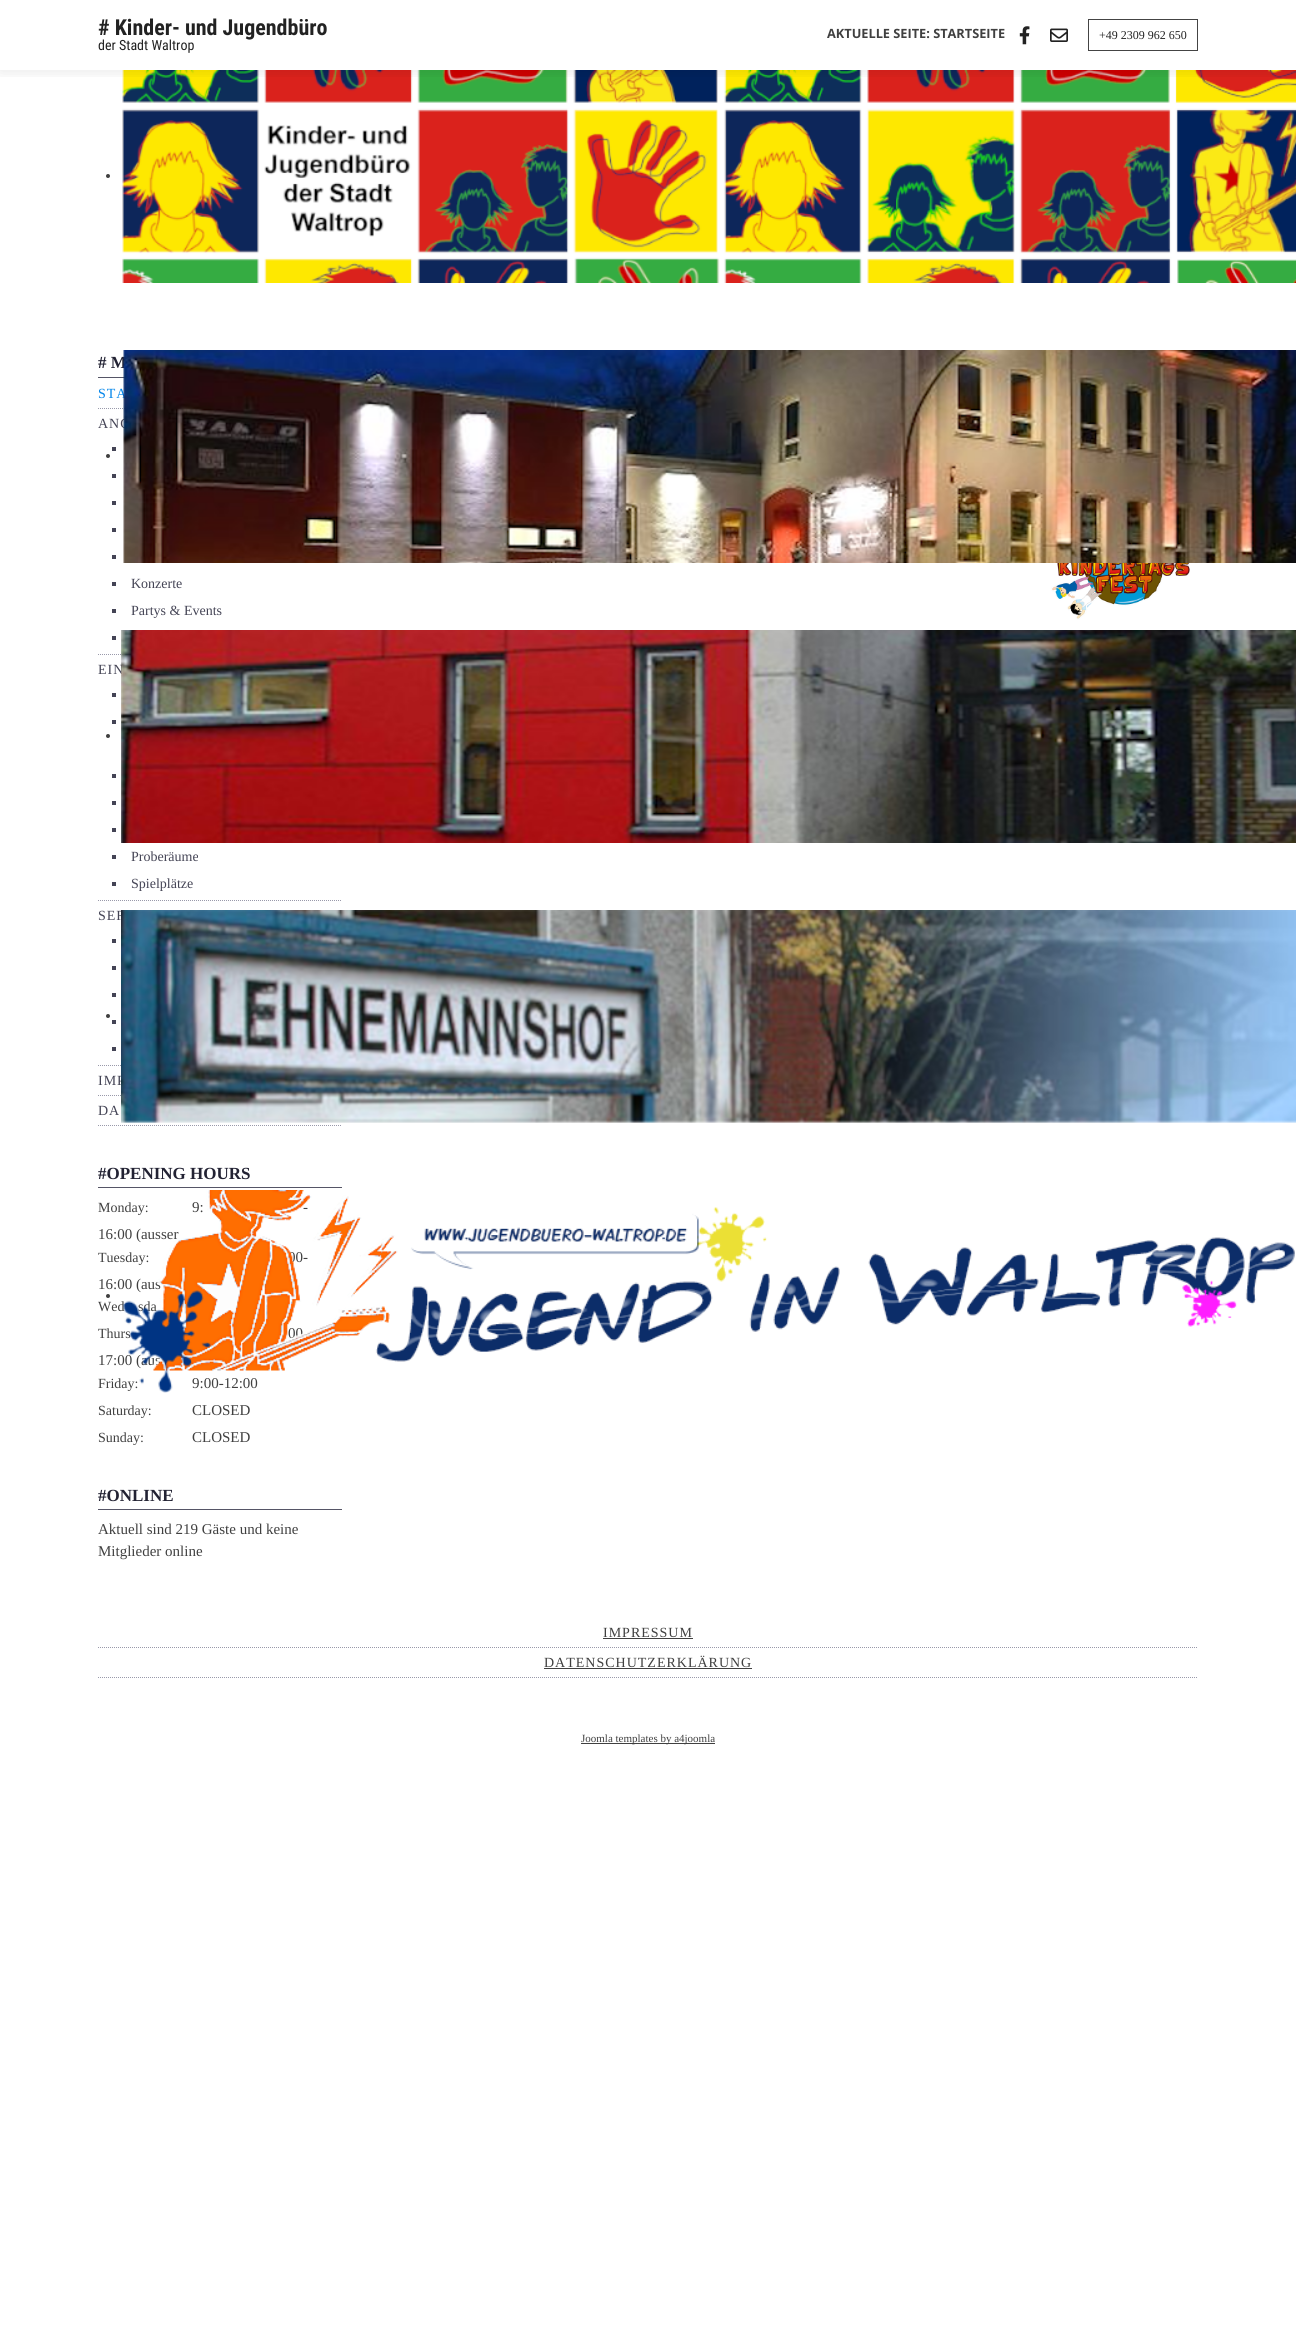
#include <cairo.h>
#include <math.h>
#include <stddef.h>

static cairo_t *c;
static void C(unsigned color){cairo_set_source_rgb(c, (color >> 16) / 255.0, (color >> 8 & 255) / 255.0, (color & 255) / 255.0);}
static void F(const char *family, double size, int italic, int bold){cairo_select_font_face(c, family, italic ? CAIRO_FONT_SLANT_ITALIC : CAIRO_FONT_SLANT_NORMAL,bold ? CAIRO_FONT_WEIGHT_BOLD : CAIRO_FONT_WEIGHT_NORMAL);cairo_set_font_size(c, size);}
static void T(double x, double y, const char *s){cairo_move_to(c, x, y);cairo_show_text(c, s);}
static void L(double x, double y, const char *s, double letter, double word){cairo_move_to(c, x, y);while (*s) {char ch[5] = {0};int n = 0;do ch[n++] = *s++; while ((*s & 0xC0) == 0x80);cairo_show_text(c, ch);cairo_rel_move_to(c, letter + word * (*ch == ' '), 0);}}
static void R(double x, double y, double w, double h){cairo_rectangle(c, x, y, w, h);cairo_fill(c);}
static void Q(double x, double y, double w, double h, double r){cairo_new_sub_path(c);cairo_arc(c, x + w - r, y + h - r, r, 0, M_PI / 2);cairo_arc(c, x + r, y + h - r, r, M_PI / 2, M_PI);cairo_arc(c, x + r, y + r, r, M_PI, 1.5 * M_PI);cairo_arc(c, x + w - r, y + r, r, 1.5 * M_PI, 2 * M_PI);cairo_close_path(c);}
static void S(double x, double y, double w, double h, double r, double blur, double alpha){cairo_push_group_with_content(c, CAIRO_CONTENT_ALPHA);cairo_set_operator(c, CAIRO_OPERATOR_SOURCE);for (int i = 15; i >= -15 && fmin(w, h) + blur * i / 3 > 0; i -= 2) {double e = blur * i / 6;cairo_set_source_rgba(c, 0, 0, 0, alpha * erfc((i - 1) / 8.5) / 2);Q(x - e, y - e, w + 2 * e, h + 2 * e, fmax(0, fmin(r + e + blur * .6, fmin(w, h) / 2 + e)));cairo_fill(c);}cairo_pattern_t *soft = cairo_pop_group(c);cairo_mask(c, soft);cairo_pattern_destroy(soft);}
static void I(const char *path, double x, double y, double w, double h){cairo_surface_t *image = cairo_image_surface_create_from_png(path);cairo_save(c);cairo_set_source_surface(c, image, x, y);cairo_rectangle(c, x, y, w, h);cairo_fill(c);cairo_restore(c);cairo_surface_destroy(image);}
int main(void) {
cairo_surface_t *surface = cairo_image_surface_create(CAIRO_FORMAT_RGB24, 1296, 2349);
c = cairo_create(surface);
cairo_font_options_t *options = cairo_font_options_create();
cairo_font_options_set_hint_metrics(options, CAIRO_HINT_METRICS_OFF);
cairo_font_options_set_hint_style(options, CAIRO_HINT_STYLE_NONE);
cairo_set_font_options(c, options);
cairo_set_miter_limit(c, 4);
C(0xffffff);
cairo_paint(c);
I("3.png",122,70,1174,213);
cairo_save(c);
cairo_rectangle(c,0,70,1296,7);
cairo_clip(c);
C(0x000000);
S(0,1,1296,70,0,7.5,.1);
cairo_restore(c);
F("Roboto Condensed",22,0,1);
C(0x222222);
T(98,35,"# Kinder- und Jugendbüro");
F("Roboto Condensed",14,0,0);
T(98,50,"der Stadt Waltrop");
F("Open Sans",12.75,0,1);
C(0x404040);
T(827,38,"AKTUELLE SEITE: STARTSEITE");
I("1.png",1019,26,11,19);
I("2.png",1050,28,18,14);
cairo_rectangle(c,1088.5,19.5,109,31);
C(0x444444);
cairo_set_line_width(c,1);
cairo_stroke(c);
F("Liberation Serif",12,0,0);
C(0x222222);
T(1099,39,"+49 2309 962 650");
C(0x404040);
cairo_new_path(c);
cairo_arc(c,108,176,2,0,2 * M_PI);
cairo_fill(c);
cairo_arc(c,108,456,2,0,2 * M_PI);
cairo_fill(c);
C(0x555566);
R(98,377,27,1);
F("Liberation Serif",17,0,1);
C(0x222233);
T(98,368,"# M");
cairo_new_path(c);
cairo_move_to(c,98,408.5);
cairo_line_to(c,342,408.5);
C(0x9999aa);
cairo_set_dash(c,(double[]){1,1},2,0);
cairo_stroke(c);
F("Liberation Serif",14,0,0);
C(0x0084ea);
L(98,398,"STA",1,0);
C(0x444455);
L(98,428,"ANG",1,0);
I("4.png",123,350,1173,213);
C(0x404040);
cairo_arc(c,108,736,2,0,2 * M_PI);
cairo_fill(c);
cairo_new_path(c);
cairo_move_to(c,98,654.5);
cairo_line_to(c,342,654.5);
C(0x9999aa);
cairo_stroke(c);
C(0x444455);
L(98,674,"EIN",1,0);
I("5.png",121,630,1175,213);
C(0x404040);
cairo_arc(c,108,1016,2,0,2 * M_PI);
cairo_fill(c);
cairo_new_path(c);
cairo_move_to(c,98,1065.5);
cairo_line_to(c,342,1065.5);
C(0x9999aa);
cairo_stroke(c);
C(0x444455);
L(98,920,"SER",1,0);
cairo_new_path(c);
cairo_move_to(c,98,1095.5);
cairo_line_to(c,342,1095.5);
C(0x9999aa);
cairo_stroke(c);
C(0x444455);
L(98,1085,"IMP",1,0);
I("6.png",121,910,1175,213);
C(0x404040);
cairo_arc(c,108,1296,2,0,2 * M_PI);
cairo_fill(c);
T(98,1212,"Monday:");
F("Liberation Serif",15,0,0);
T(192,1212,"9:");
T(303,1212,"-");
T(98,1239,"16:00 (ausser");
F("Liberation Serif",14,0,0);
T(98,1262,"Tuesday:");
F("Liberation Serif",15,0,0);
T(288,1262,"00-");
T(98,1289,"16:00 (aus");
F("Liberation Serif",14,0,0);
T(98,1311,"Wed");
T(138,1311,"sda");
T(98,1338,"Thurs");
F("Liberation Serif",15,0,0);
T(288,1338,"00");
T(98,1365,"17:00 (aus");
F("Liberation Serif",14,0,0);
T(98,1388,"Friday:");
F("Liberation Serif",15,0,0);
T(192,1388,"9:00-12:00");
I("7.png",123,1190,1172,203);
C(0x444455);
R(112,447,4,4);
R(112,474,4,4);
R(112,501,4,4);
R(112,528,4,4);
R(112,555,4,4);
R(112,582,4,4);
F("Liberation Serif",14,0,0);
T(131,588,"Konzerte");
R(112,609,4,4);
T(131,615,"Partys & Events");
R(112,636,4,4);
cairo_new_path(c);
cairo_move_to(c,98,900.5);
cairo_line_to(c,342,900.5);
C(0x9999aa);
cairo_stroke(c);
C(0x444455);
R(112,693,4,4);
R(112,720,4,4);
R(112,774,4,4);
R(112,801,4,4);
R(112,828,4,4);
R(112,855,4,4);
T(131,861,"Proberäume");
R(112,882,4,4);
T(131,888,"Spielplätze");
R(112,939,4,4);
R(112,966,4,4);
R(112,993,4,4);
R(112,1020,4,4);
R(112,1047,4,4);
cairo_new_path(c);
cairo_move_to(c,98,1125.5);
cairo_line_to(c,342,1125.5);
C(0x9999aa);
cairo_stroke(c);
C(0x444455);
L(98,1115,"DA",1,0);
C(0x555566);
R(98,1187,244,1);
F("Liberation Serif",17,0,1);
C(0x222233);
T(98,1179,"#OPENING HOURS");
F("Liberation Serif",14,0,0);
C(0x404040);
T(98,1415,"Saturday:");
F("Liberation Serif",15,0,0);
T(192,1415,"CLOSED");
F("Liberation Serif",14,0,0);
T(98,1442,"Sunday:");
F("Liberation Serif",15,0,0);
T(192,1442,"CLOSED");
C(0x555566);
R(98,1509,244,1);
F("Liberation Serif",17,0,1);
C(0x222233);
T(98,1501,"#ONLINE");
F("Liberation Serif",15,0,0);
C(0x404040);
T(98,1534,"Aktuell sind 219 Gäste und keine");
T(98,1556,"Mitglieder online");
I("8.png",1051,563,139,57);
cairo_new_path(c);
cairo_move_to(c,98,1647.5);
cairo_line_to(c,1198,1647.5);
C(0x9999aa);
cairo_stroke(c);
F("Liberation Serif",14,0,0);
C(0x404040);
L(603,1637,"IMPRESSUM",1,0);
R(603,1638,90,1);
cairo_new_path(c);
cairo_move_to(c,98,1677.5);
cairo_line_to(c,1198,1677.5);
C(0x9999aa);
cairo_stroke(c);
C(0x404040);
L(544,1667,"DATENSCHUTZERKLÄRUNG",1,0);
R(544,1668,208,1);
R(581,1743,134,1);
F("Liberation Serif",11,0,0);
T(581,1742,"Joomla templates by a4joomla");
cairo_surface_write_to_png(surface, "o.png");
cairo_font_options_destroy(options);
cairo_destroy(c);
cairo_surface_destroy(surface);
return 0;
}
